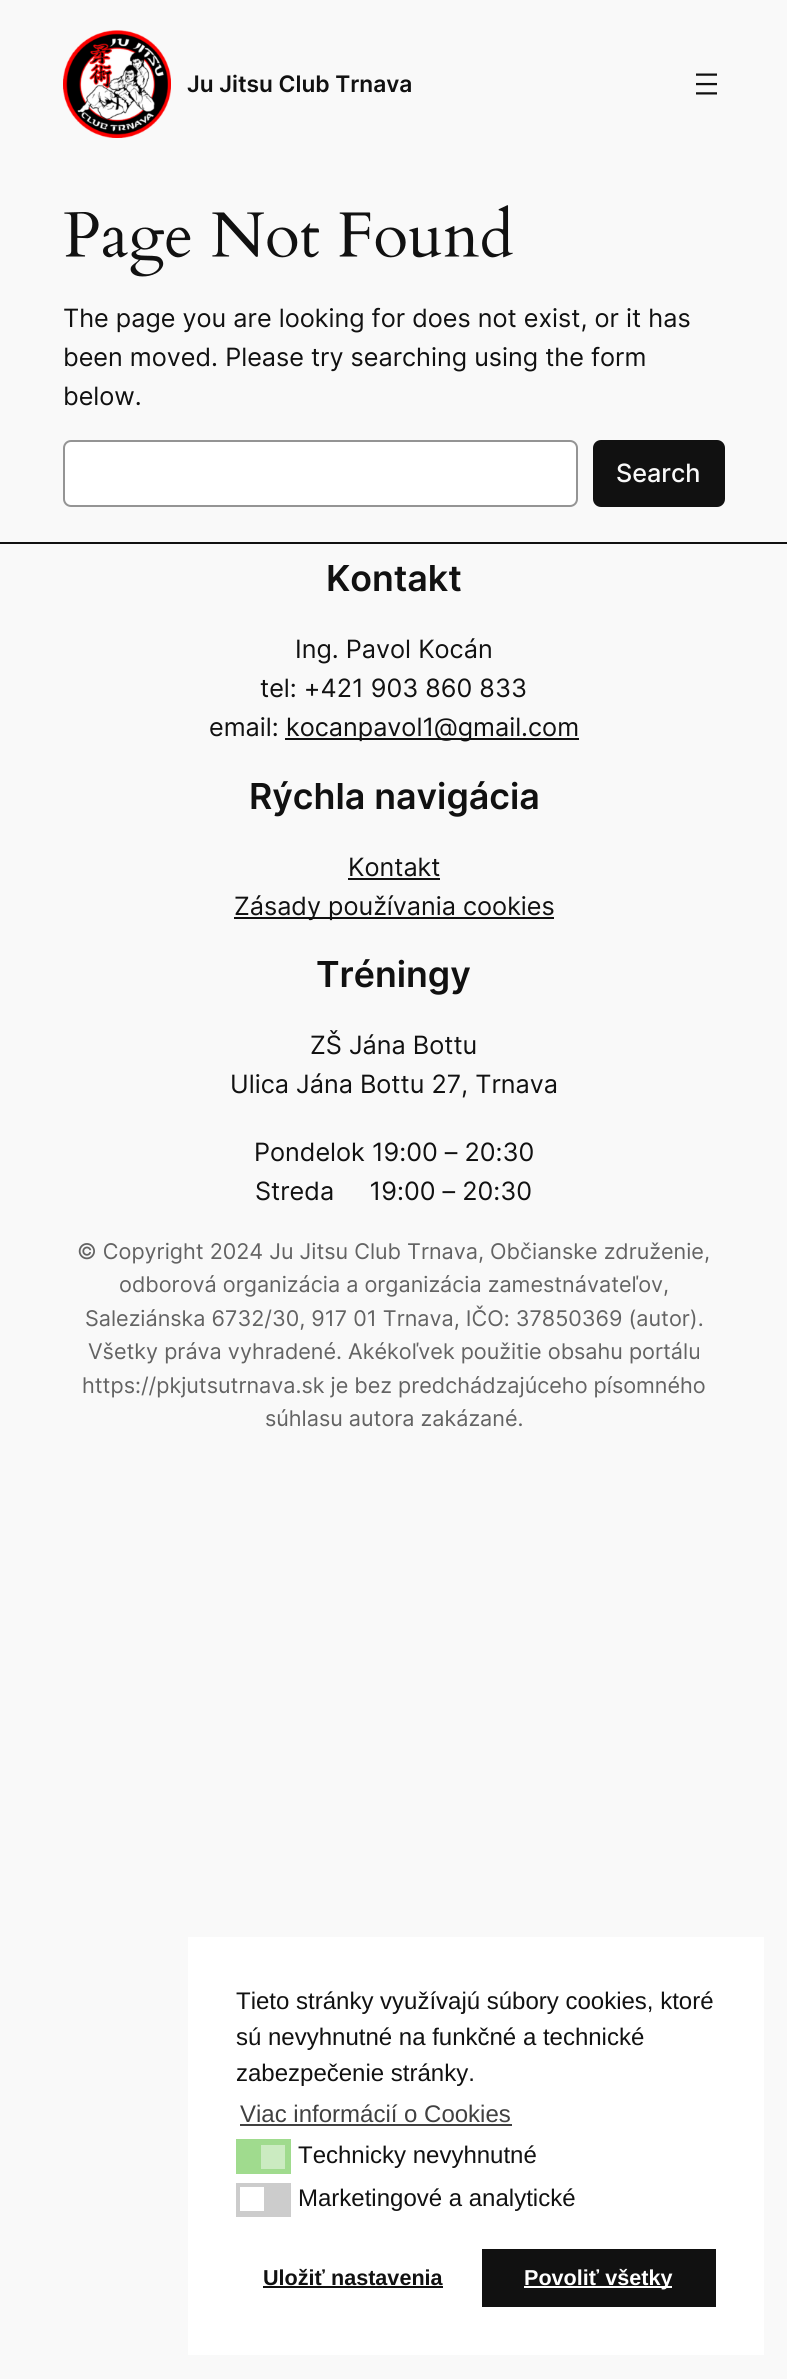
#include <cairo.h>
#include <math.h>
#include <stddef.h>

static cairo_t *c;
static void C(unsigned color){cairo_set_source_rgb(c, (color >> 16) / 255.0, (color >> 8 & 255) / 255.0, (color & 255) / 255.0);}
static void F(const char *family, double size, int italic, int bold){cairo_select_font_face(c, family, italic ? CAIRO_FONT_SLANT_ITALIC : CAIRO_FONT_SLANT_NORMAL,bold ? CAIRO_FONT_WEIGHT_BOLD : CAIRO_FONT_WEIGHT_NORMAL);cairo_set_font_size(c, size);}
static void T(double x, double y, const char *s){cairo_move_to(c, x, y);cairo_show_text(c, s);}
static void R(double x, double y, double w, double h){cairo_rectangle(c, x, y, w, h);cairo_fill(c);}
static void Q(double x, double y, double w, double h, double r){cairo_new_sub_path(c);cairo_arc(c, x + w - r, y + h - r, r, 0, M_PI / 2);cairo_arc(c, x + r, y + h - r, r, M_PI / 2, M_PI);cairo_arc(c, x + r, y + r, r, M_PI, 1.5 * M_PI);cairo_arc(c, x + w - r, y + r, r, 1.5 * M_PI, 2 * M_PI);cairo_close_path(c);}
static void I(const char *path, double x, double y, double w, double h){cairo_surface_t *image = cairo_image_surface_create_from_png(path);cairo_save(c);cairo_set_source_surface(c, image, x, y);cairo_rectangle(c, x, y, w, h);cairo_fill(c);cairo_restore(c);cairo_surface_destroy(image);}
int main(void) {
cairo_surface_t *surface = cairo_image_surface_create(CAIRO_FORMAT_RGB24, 787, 2379);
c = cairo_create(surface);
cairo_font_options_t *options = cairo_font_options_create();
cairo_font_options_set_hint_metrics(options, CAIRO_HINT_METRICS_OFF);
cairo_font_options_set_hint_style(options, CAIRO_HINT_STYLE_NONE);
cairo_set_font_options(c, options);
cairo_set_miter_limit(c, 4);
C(0xf9f9f9);
cairo_paint(c);
I("1.png",63,30,108,108);
F("Inter SemiBold",22.75,0,0);
C(0x111111);
T(187,92,"Ju Jitsu Club Trnava");
I("2.png",696,73,21,22);
I("3.png",64,205,449,72);
F("Inter",25.2,0,0);
T(63,327,"The page you are looking for does not exist, or it has");
T(63,366,"been moved. Please try searching using the form");
T(63,405,"below.");
C(0xffffff);
Q(64,441,513,65,7);
cairo_fill_preserve(c);
C(0x949494);
cairo_stroke(c);
C(0x111111);
Q(593,440,132,67,8);
cairo_fill(c);
F("Inter Medium",25.2,0,0);
C(0xf9f9f9);
T(616,482,"Search");
C(0x111111);
R(0,542,787,2);
F("Inter SemiBold",35.75,0,0);
T(326,591,"Kontakt");
F("Inter",25.2,0,0);
T(295,658,"Ing. Pavol Kocán");
T(260,697,"tel: +421 903 860 833");
T(209,736,"email:");
R(285,738,294,2);
T(286,736,"kocanpavol1@gmail.com");
F("Inter SemiBold",35.75,0,0);
T(249,809,"Rýchla navigácia");
F("Inter",25.2,0,0);
T(348,876,"Kontakt");
R(348,878,92,2);
R(234,917,320,2);
T(234,915,"Zásady používania cookies");
F("Inter SemiBold",35.75,0,0);
T(316,987,"Tréningy");
F("Inter",25.2,0,0);
T(310,1054,"ZŠ Jána Bottu");
T(230,1093,"Ulica Jána Bottu 27, Trnava");
T(254,1161,"Pondelok 19:00 – 20:30");
T(255,1200,"Streda     19:00 – 20:30");
F("Inter",21.6,0,0);
C(0x636363);
T(77,1259,"© Copyright 2024 Ju Jitsu Club Trnava, Občianske združenie,");
T(119,1292,"odborová organizácia a organizácia zamestnávateľov,");
T(85,1326,"Saleziánska 6732/30, 917 01 Trnava, IČO: 37850369 (autor).");
T(88,1359,"Všetky práva vyhradené. Akékoľvek použitie obsahu portálu");
T(82,1393,"https://pkjutsutrnava.sk je bez predchádzajúceho písomného");
T(265,1426,"súhlasu autora zakázané.");
C(0xffffff);
R(188,1937,576,418);
F("Liberation Sans",24,0,0);
C(0x111111);
T(236,2009,"Tieto stránky využívajú súbory cookies, ktoré");
T(236,2045,"sú nevyhnutné na funkčné a technické");
T(236,2081,"zabezpečenie stránky.");
C(0x414141);
T(240,2122,"Viac informácií o Cookies");
R(240,2124,272,2);
C(0xa0db8e);
R(236,2139,55,35);
C(0xcbebc1);
R(261,2145,24,24);
C(0x111111);
T(298,2163,"Technicky nevyhnutné");
C(0xcccccc);
R(236,2183,55,34);
C(0xffffff);
R(240,2187,24,24);
C(0x111111);
T(298,2206,"Marketingové a analytické");
F("Liberation Sans",21.6,0,1);
T(263,2285,"Uložiť nastavenia");
R(263,2286,180,2);
R(482,2249,234,58);
C(0xffffff);
R(524,2286,148,2);
T(524,2285,"Povoliť všetky");
cairo_surface_write_to_png(surface, "o.png");
cairo_font_options_destroy(options);
cairo_destroy(c);
cairo_surface_destroy(surface);
return 0;
}
